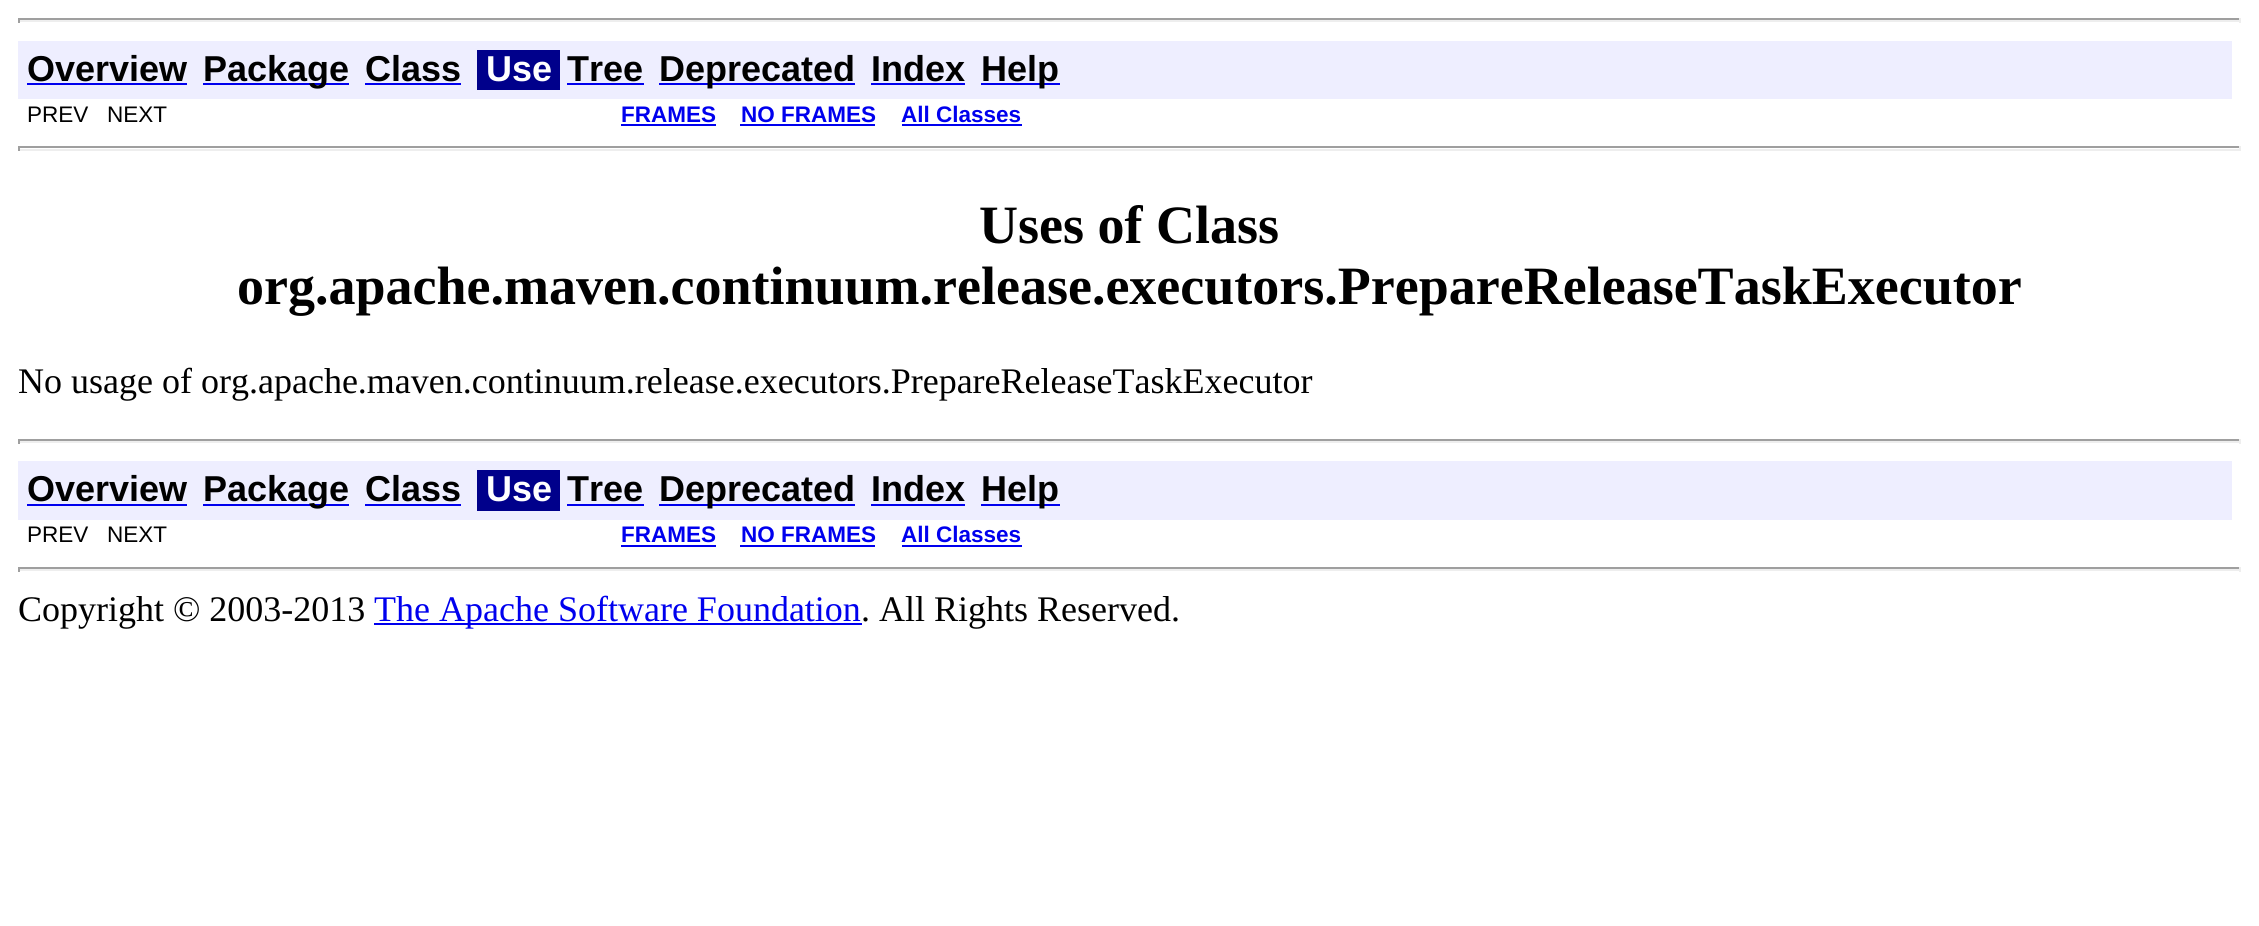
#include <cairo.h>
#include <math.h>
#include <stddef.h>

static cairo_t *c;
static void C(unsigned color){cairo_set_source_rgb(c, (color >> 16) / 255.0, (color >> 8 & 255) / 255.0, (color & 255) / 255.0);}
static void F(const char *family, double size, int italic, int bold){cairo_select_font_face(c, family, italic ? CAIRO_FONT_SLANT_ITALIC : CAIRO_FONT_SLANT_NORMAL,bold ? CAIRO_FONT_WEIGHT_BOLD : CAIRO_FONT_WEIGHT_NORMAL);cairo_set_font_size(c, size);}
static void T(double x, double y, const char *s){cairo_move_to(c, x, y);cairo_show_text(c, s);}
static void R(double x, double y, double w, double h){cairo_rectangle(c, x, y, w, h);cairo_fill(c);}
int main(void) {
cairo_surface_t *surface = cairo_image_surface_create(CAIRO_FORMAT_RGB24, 2259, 926);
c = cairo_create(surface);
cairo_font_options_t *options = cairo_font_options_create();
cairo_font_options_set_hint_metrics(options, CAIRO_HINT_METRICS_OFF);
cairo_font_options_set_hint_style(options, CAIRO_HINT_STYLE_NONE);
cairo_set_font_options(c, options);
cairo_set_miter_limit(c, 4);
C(0xffffff);
cairo_paint(c);
C(0x9f9f9f);
R(18,18,2223,2);
C(0xeeeeee);
R(2239,18,2,5);
R(18,20,2223,2);
C(0x9f9f9f);
R(18,18,2,5);
C(0xeeeeff);
R(18,41,2214,58);
F("Liberation Sans",36,0,1);
C(0x000000);
T(27,81,"Overview");
C(0x0000ee);
R(27,83,160,2);
R(203,83,146,2);
C(0x000000);
T(203,81,"Package");
T(365,81,"Class");
C(0x0000ee);
R(365,83,96,2);
C(0x00008b);
R(477,50,83,40);
C(0xffffff);
T(486,81,"Use");
C(0x000000);
T(567,81,"Tree");
C(0x0000ee);
R(567,83,77,2);
R(659,83,196,2);
C(0x000000);
T(659,81,"Deprecated");
T(871,81,"Index");
C(0x0000ee);
R(871,83,94,2);
R(981,83,79,2);
C(0x000000);
T(981,81,"Help");
F("Liberation Sans",22.5,0,0);
T(27,122,"PREV   NEXT");
F("Liberation Sans",22.5,0,1);
C(0x0000ee);
T(621,122,"FRAMES");
R(621,124,95,2);
T(741,122,"NO FRAMES");
R(740,124,135,2);
T(901,122,"All Classes");
R(902,124,120,2);
C(0x9f9f9f);
R(18,146,2223,2);
C(0xeeeeee);
R(2239,146,2,5);
R(18,149,2223,2);
C(0x9f9f9f);
R(18,146,2,5);
F("Liberation Serif",54,0,1);
C(0x000000);
T(979,243,"Uses of Class");
T(237,304,"org.apache.maven.continuum.release.executors.PrepareReleaseTaskExecutor");
F("Liberation Serif",36,0,0);
T(18,393,"No usage of org.apache.maven.continuum.release.executors.PrepareReleaseTaskExecutor");
C(0x9f9f9f);
R(18,439,2223,2);
C(0xeeeeee);
R(2239,439,2,5);
R(18,441,2223,2);
C(0x9f9f9f);
R(18,439,2,5);
C(0xeeeeff);
R(18,461,2214,59);
F("Liberation Sans",36,0,1);
C(0x000000);
T(27,501,"Overview");
C(0x0000ee);
R(27,504,160,2);
R(203,504,146,2);
C(0x000000);
T(203,501,"Package");
T(365,501,"Class");
C(0x0000ee);
R(365,504,96,2);
C(0x00008b);
R(477,470,83,41);
C(0xffffff);
T(486,501,"Use");
C(0x000000);
T(567,501,"Tree");
C(0x0000ee);
R(567,504,77,2);
R(659,504,196,2);
C(0x000000);
T(659,501,"Deprecated");
T(871,501,"Index");
C(0x0000ee);
R(871,504,94,2);
R(981,504,79,2);
C(0x000000);
T(981,501,"Help");
F("Liberation Sans",22.5,0,0);
T(27,542,"PREV   NEXT");
F("Liberation Sans",22.5,0,1);
C(0x0000ee);
T(621,542,"FRAMES");
R(621,545,95,2);
T(741,542,"NO FRAMES");
R(740,545,135,2);
T(901,542,"All Classes");
R(902,545,120,2);
C(0x9f9f9f);
R(18,567,2223,2);
C(0xeeeeee);
R(2239,567,2,5);
R(18,569,2223,2);
C(0x9f9f9f);
R(18,567,2,5);
F("Liberation Serif",36,0,0);
C(0x000000);
T(18,621,"Copyright © 2003-2013");
C(0x0000ee);
R(374,623,488,2);
T(374,621,"The Apache Software Foundation");
C(0x000000);
T(861,621,". All Rights Reserved.");
cairo_surface_write_to_png(surface, "o.png");
cairo_font_options_destroy(options);
cairo_destroy(c);
cairo_surface_destroy(surface);
return 0;
}
